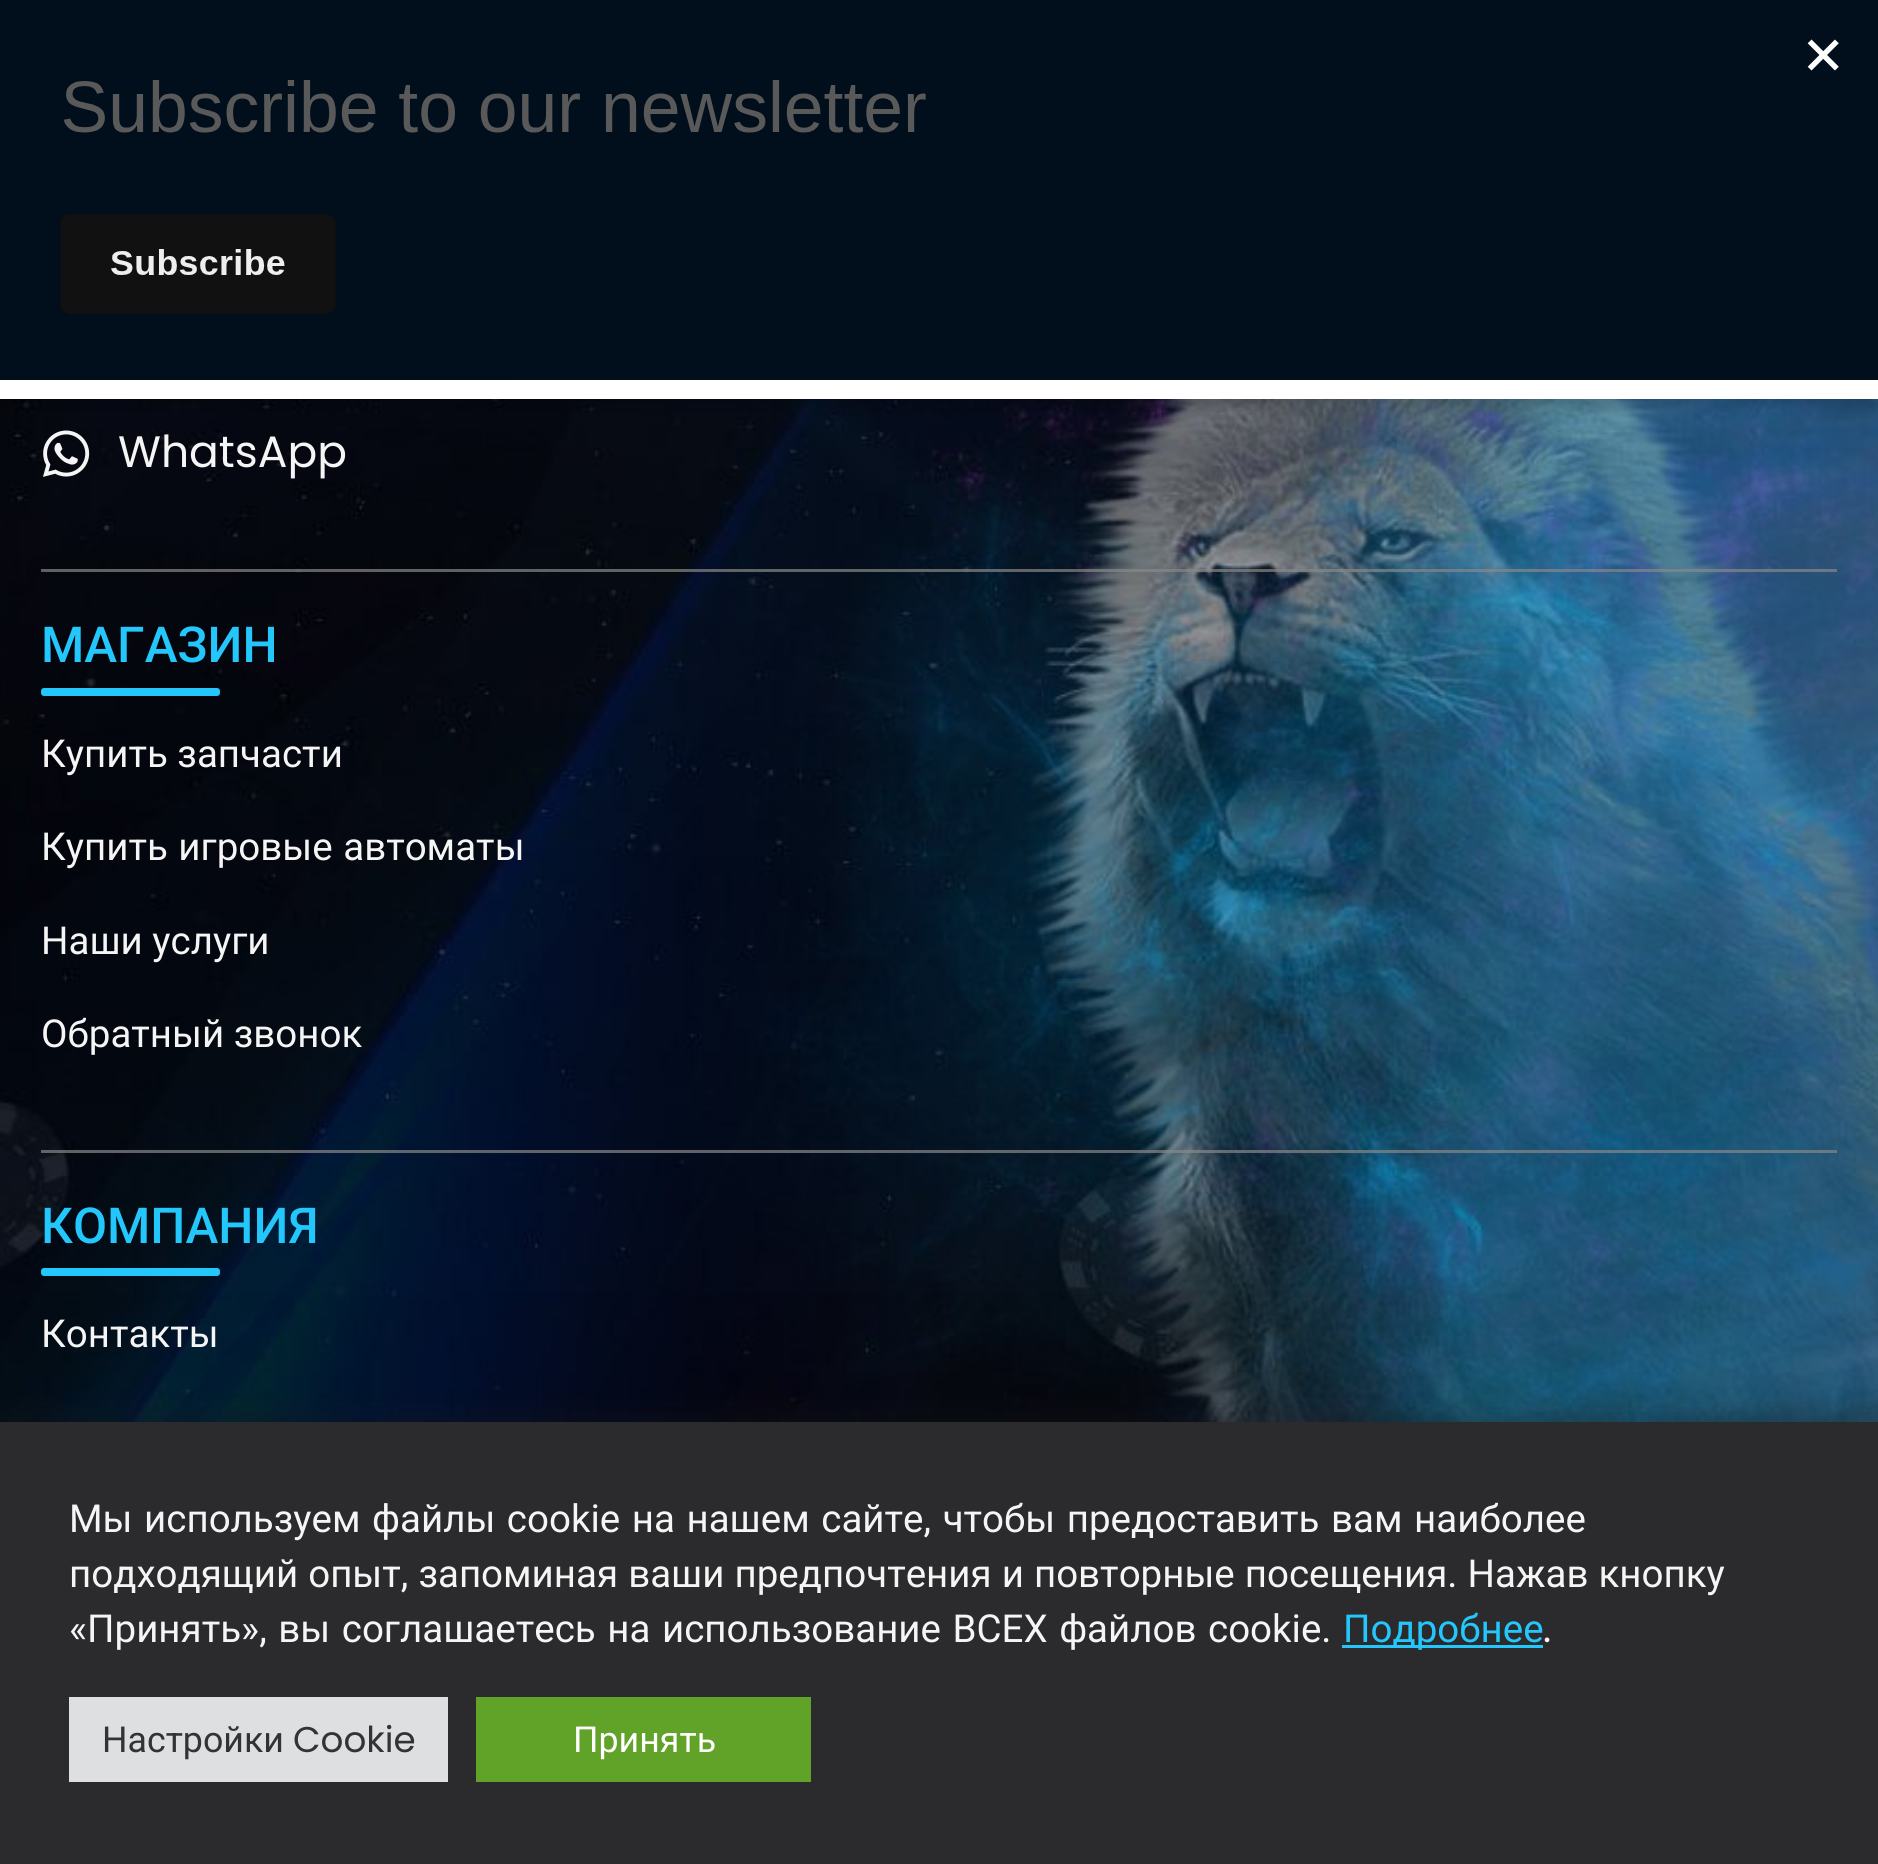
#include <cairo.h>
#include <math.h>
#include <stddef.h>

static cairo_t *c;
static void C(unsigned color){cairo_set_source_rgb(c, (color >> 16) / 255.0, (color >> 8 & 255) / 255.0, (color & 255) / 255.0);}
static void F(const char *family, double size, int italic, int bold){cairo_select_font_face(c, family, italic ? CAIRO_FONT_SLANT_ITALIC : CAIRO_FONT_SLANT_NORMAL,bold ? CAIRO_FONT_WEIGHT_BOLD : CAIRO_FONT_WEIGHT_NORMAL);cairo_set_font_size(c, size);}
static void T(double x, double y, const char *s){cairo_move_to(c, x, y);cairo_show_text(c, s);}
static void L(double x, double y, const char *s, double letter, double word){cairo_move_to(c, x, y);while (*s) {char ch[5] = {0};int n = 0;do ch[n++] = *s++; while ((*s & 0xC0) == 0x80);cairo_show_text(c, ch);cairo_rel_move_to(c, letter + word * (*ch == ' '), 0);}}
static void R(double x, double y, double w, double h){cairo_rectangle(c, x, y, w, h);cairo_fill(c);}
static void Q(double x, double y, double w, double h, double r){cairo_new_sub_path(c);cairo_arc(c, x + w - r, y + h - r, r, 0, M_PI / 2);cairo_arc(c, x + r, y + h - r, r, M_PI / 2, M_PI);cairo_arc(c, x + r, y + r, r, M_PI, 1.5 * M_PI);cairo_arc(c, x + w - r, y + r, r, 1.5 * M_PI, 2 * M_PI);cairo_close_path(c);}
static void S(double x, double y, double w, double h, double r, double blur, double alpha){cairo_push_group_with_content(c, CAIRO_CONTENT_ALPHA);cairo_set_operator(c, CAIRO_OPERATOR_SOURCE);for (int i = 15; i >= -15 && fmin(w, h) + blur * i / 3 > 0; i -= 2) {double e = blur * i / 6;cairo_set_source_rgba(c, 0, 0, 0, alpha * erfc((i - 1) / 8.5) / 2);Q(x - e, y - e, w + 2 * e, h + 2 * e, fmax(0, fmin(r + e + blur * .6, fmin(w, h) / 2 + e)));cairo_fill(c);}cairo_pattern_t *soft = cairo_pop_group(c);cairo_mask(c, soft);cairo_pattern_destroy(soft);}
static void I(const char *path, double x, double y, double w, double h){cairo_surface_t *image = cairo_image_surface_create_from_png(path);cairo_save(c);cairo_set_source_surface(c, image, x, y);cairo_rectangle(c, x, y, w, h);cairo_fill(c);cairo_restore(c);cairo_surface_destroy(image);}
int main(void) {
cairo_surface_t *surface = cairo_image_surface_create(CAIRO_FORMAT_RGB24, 1878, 1864);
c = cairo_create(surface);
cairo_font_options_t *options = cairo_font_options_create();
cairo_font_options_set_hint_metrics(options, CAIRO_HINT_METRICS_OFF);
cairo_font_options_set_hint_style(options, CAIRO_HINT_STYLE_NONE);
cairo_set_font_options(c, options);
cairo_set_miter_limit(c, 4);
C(0xffffff);
cairo_paint(c);
I("2.png",0,399,1878,1023);
I("3.png",43,430,47,47);
C(0x000000);
S(0,8,1878,399,0,8,.2);
C(0xffffff);
R(0,380,1878,19);
I("1.png",0,0,1878,380);
cairo_set_source_rgba(c,0.533,0.533,0.533,0.7);
R(41,569,1796,3);
F("Poppins",44,0,0);
C(0xf5f5f5);
T(118,467,"WhatsApp");
cairo_set_source_rgba(c,0.533,0.533,0.533,0.7);
R(41,1150,1796,3);
F("Roboto Medium",49.5,0,0);
C(0x24c7fb);
T(41,662,"МАГАЗИН");
Q(41,688,179,8,3);
cairo_fill(c);
F("Roboto",38.5,0,0);
C(0xf5f5f5);
T(41,767,"Купить запчасти");
L(41,860,"Купить игровые автоматы",0,1);
T(41,954,"Наши услуги");
T(41,1047,"Обратный звонок");
F("Roboto Medium",49.5,0,0);
C(0x24c7fb);
T(41,1243,"КОМПАНИЯ");
Q(41,1268,179,8,3);
cairo_fill(c);
F("Roboto",38.5,0,0);
C(0xf5f5f5);
T(41,1347,"Контакты");
C(0x1a1a1a);
S(0,1419,1878,443,0,14,.4);
C(0x2b2b2d);
R(0,1422,1878,442);
C(0xf5f5f5);
L(69,1532,"Мы используем файлы cookie на нашем сайте, чтобы предоставить вам наиболее",0,2);
L(69,1587,"подходящий опыт, запоминая ваши предпочтения и повторные посещения. Нажав кнопку",0,.5);
L(69,1642,"«Принять», вы соглашаетесь на использование ВСЕХ файлов cookie.",0,2);
C(0x24c7fb);
R(1342,1645,201,3);
T(1343,1642,"Подробнее");
F("Poppins",38.5,0,0);
C(0xf5f5f5);
T(1543,1642,".");
C(0xdedfe0);
R(69,1697,379,85);
F("Roboto",35.75,0,0);
C(0x333333);
T(102,1752,"Настройки");
F("Poppins",35.75,0,0);
T(293,1752,"Cookie");
C(0x61a229);
R(476,1697,335,85);
F("Roboto",35.75,0,0);
C(0xffffff);
T(573,1752,"Принять");
cairo_surface_write_to_png(surface, "o.png");
cairo_font_options_destroy(options);
cairo_destroy(c);
cairo_surface_destroy(surface);
return 0;
}
